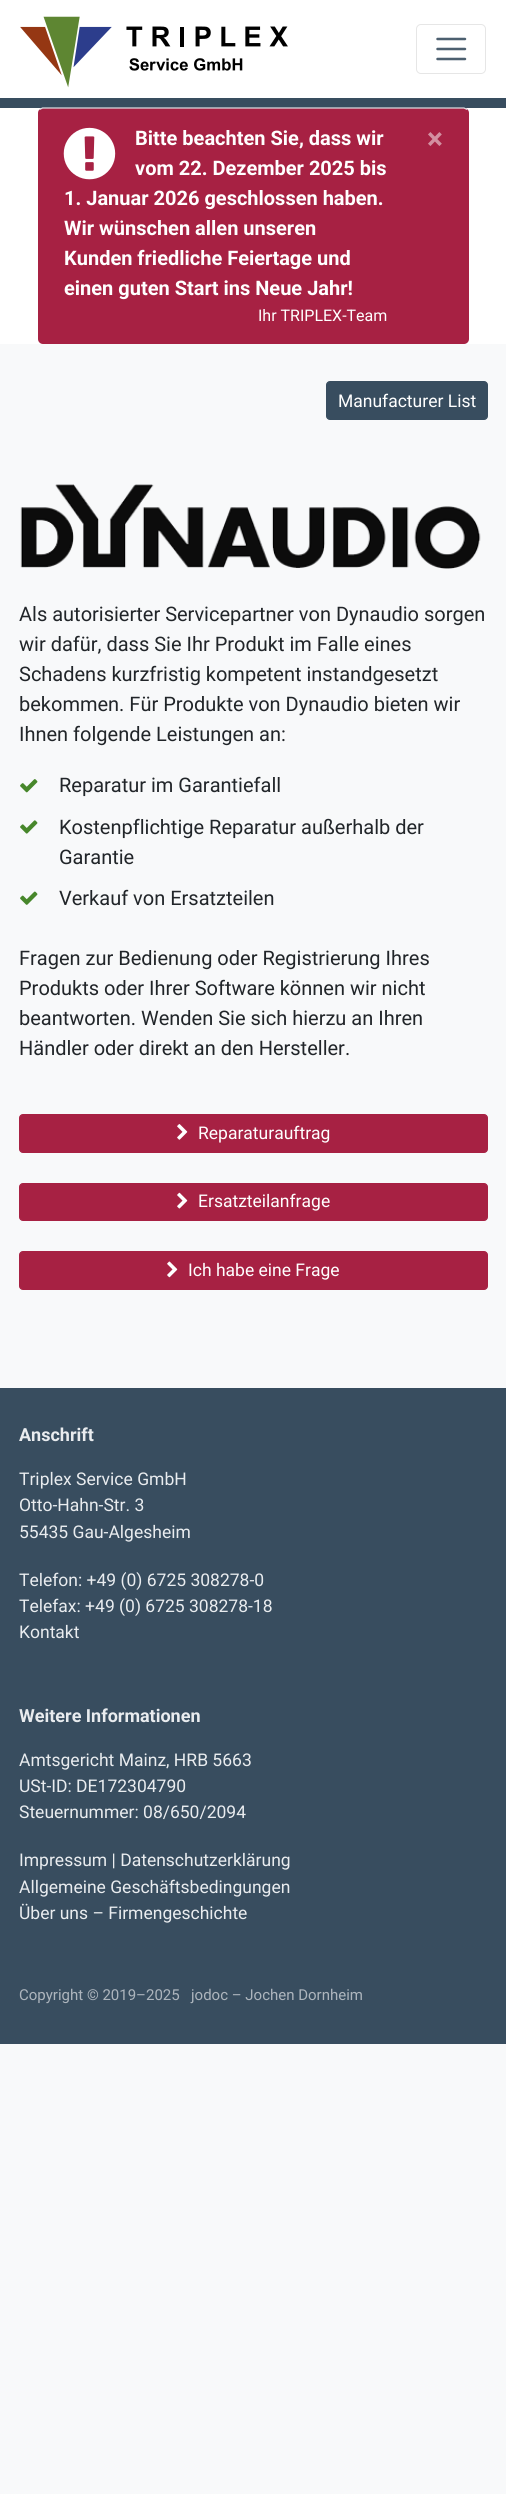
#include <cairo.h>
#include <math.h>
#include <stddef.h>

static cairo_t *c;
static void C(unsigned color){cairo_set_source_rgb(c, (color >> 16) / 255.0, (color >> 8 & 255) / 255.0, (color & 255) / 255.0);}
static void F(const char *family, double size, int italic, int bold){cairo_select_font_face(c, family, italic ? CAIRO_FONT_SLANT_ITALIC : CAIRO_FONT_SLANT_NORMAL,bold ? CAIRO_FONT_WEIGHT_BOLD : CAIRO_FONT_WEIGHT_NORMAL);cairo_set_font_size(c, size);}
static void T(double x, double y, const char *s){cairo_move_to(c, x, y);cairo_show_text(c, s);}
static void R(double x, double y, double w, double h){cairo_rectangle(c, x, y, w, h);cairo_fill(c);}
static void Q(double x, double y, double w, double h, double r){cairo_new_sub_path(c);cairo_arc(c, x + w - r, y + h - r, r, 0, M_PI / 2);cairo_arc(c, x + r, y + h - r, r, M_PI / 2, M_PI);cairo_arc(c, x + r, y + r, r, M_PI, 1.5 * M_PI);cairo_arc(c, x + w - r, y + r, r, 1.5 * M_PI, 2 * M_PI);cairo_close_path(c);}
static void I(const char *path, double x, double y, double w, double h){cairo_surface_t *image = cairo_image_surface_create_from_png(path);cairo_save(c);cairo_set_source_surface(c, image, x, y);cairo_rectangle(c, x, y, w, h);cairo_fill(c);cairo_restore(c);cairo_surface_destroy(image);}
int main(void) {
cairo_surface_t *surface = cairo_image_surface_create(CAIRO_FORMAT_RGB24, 506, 2494);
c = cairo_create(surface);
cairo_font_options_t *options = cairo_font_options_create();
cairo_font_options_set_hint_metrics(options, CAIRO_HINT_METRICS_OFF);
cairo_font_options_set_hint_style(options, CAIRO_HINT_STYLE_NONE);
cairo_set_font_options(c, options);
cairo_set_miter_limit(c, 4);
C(0xf8f9fa);
cairo_paint(c);
C(0xffffff);
R(0,0,506,98);
I("1.png",20,16,268,72);
Q(416.5,24.5,69,49,4.5);
C(0xe6e6e6);
cairo_set_line_width(c,1);
cairo_stroke(c);
cairo_new_path(c);
cairo_move_to(c,437.5,39);
cairo_line_to(c,465,39);
cairo_move_to(c,437.5,49);
cairo_line_to(c,465,49);
cairo_move_to(c,437.5,59);
cairo_line_to(c,465,59);
C(0x4c5f6f);
cairo_set_line_width(c,2.5);
cairo_set_line_cap(c,CAIRO_LINE_CAP_ROUND);
cairo_stroke(c);
C(0x384d5f);
R(0,98,506,10);
C(0xffffff);
R(0,108,506,236);
C(0xa72143);
Q(38,108,431,236,5);
cairo_fill(c);
cairo_new_path(c);
cairo_move_to(c,39.5,109.5);
cairo_line_to(c,42.5,108);
cairo_line_to(c,464,108);
cairo_line_to(c,467,109.5);
C(0xdee2e6);
cairo_set_line_width(c,1.2);
cairo_set_line_cap(c,CAIRO_LINE_CAP_BUTT);
cairo_stroke(c);
I("2.png",63,127,53,53);
F("Roboto",20,0,1);
C(0xffffff);
T(135,145,"Bitte beachten Sie, dass wir");
T(135,175,"vom 22. Dezember 2025 bis");
T(64,205,"1. Januar 2026 geschlossen haben.");
T(64,235,"Wir wünschen allen unseren");
T(64,265,"Kunden friedliche Feiertage und");
T(64,295,"einen guten Start ins Neue Jahr!");
F("Roboto",30,0,1);
C(0xd390a1);
T(427,149,"×");
F("Roboto",16,0,0);
C(0xffffff);
T(258,321,"Ihr TRIPLEX-Team");
C(0x384d5f);
Q(326.5,381.5,161,38,3.5);
cairo_fill_preserve(c);
cairo_set_line_width(c,1);
cairo_stroke(c);
F("Roboto",17.5,0,0);
C(0xffffff);
T(338,407,"Manufacturer List");
I("3.png",20,484,461,85);
F("Roboto",20,0,0);
C(0x212529);
T(19,621,"Als autorisierter Servicepartner von Dynaudio sorgen");
T(19,651,"wir dafür, dass Sie Ihr Produkt im Falle eines");
T(19,681,"Schadens kurzfristig kompetent instandgesetzt");
T(19,711,"bekommen. Für Produkte von Dynaudio bieten wir");
T(19,741,"Ihnen folgende Leistungen an:");
I("4.png",20,779,18,14);
T(59,792,"Reparatur im Garantiefall");
I("5.png",20,820,18,14);
T(59,834,"Kostenpflichtige Reparatur außerhalb der");
T(59,864,"Garantie");
I("6.png",20,891,18,14);
T(59,905,"Verkauf von Ersatzteilen");
T(19,965,"Fragen zur Bedienung oder Registrierung Ihres");
T(19,995,"Produkts oder Ihrer Software können wir nicht");
T(19,1025,"beantworten. Wenden Sie sich hierzu an Ihren");
T(19,1055,"Händler oder direkt an den Hersteller.");
C(0xa72143);
Q(19.5,1114.5,468,38,3.5);
cairo_fill_preserve(c);
cairo_stroke(c);
I("7.png",177,1124,11,16);
F("Roboto",17.5,0,0);
C(0xffffff);
T(198,1139,"Reparaturauftrag");
C(0xa72143);
Q(19.5,1183.5,468,37,3.5);
cairo_fill_preserve(c);
cairo_stroke(c);
I("8.png",177,1192,11,17);
C(0xffffff);
T(198,1207,"Ersatzteilanfrage");
C(0xa72143);
Q(19.5,1251.5,468,38,3.5);
cairo_fill_preserve(c);
cairo_stroke(c);
I("9.png",167,1261,11,17);
C(0xffffff);
T(188,1276,"Ich habe eine Frage");
C(0x384d5f);
R(0,1388,506,656);
F("Roboto",18,0,1);
C(0xe9ecef);
T(19,1441,"Anschrift");
F("Roboto",17.5,0,0);
T(19,1485,"Triplex Service GmbH");
T(19,1511,"Otto-Hahn-Str. 3");
T(19,1538,"55435 Gau-Algesheim");
T(19,1586,"Telefon: +49 (0) 6725 308278-0");
T(19,1612,"Telefax: +49 (0) 6725 308278-18");
T(19,1638,"Kontakt");
F("Roboto",18,0,1);
T(19,1722,"Weitere Informationen");
F("Roboto",17.5,0,0);
T(19,1766,"Amtsgericht Mainz, HRB 5663");
T(19,1792,"USt-ID: DE172304790");
T(19,1818,"Steuernummer: 08/650/2094");
T(19,1866,"Impressum | Datenschutzerklärung");
T(19,1893,"Allgemeine Geschäftsbedingungen");
T(19,1919,"Über uns – Firmengeschichte");
F("Roboto",15,0,0);
C(0xadb5bd);
T(19,2000,"Copyright © 2019–2025");
T(191,2000,"jodoc – Jochen Dornheim");
cairo_surface_write_to_png(surface, "o.png");
cairo_font_options_destroy(options);
cairo_destroy(c);
cairo_surface_destroy(surface);
return 0;
}
